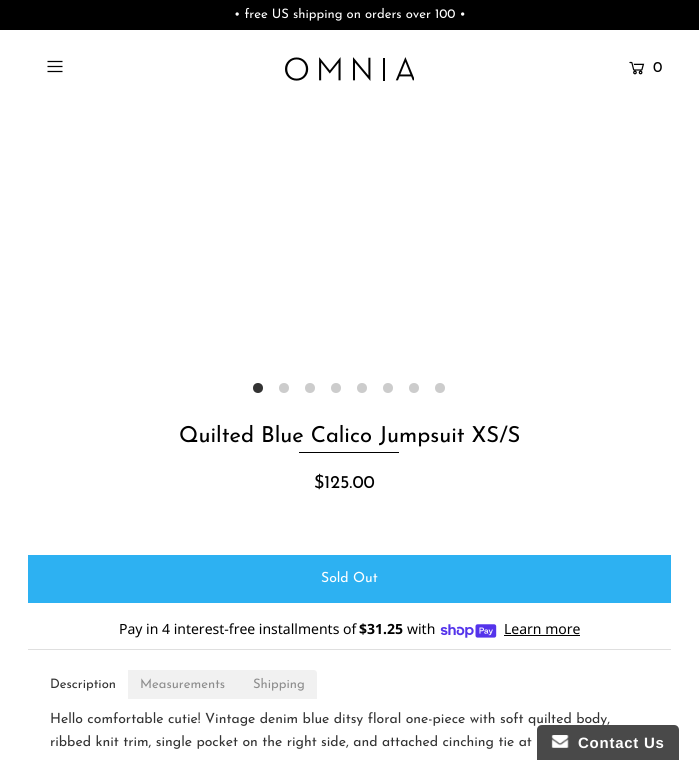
#include <cairo.h>
#include <math.h>
#include <stddef.h>

static cairo_t *c;
static void C(unsigned color){cairo_set_source_rgb(c, (color >> 16) / 255.0, (color >> 8 & 255) / 255.0, (color & 255) / 255.0);}
static void F(const char *family, double size, int italic, int bold){cairo_select_font_face(c, family, italic ? CAIRO_FONT_SLANT_ITALIC : CAIRO_FONT_SLANT_NORMAL,bold ? CAIRO_FONT_WEIGHT_BOLD : CAIRO_FONT_WEIGHT_NORMAL);cairo_set_font_size(c, size);}
static void T(double x, double y, const char *s){cairo_move_to(c, x, y);cairo_show_text(c, s);}
static void L(double x, double y, const char *s, double letter, double word){cairo_move_to(c, x, y);while (*s) {char ch[5] = {0};int n = 0;do ch[n++] = *s++; while ((*s & 0xC0) == 0x80);cairo_show_text(c, ch);cairo_rel_move_to(c, letter + word * (*ch == ' '), 0);}}
static void R(double x, double y, double w, double h){cairo_rectangle(c, x, y, w, h);cairo_fill(c);}
static void I(const char *path, double x, double y, double w, double h){cairo_surface_t *image = cairo_image_surface_create_from_png(path);cairo_save(c);cairo_set_source_surface(c, image, x, y);cairo_rectangle(c, x, y, w, h);cairo_fill(c);cairo_restore(c);cairo_surface_destroy(image);}
int main(void) {
cairo_surface_t *surface = cairo_image_surface_create(CAIRO_FORMAT_RGB24, 699, 760);
c = cairo_create(surface);
cairo_font_options_t *options = cairo_font_options_create();
cairo_font_options_set_hint_metrics(options, CAIRO_HINT_METRICS_OFF);
cairo_font_options_set_hint_style(options, CAIRO_HINT_STYLE_NONE);
cairo_set_font_options(c, options);
cairo_set_miter_limit(c, 4);
C(0xffffff);
cairo_paint(c);
C(0x000000);
R(0,0,699,30);
F("Josefin Sans",13,0,0);
C(0xffffff);
T(234,18,"• free US shipping on orders over 100 •");
I("1.png",47,60,16,13);
I("2.png",285,57,129,24);
I("3.png",629,61,16,14);
F("Josefin Sans",15,0,0);
C(0x000000);
T(653,72,"0");
C(0x333333);
cairo_new_path(c);
cairo_arc(c,258,388,5,0,2 * M_PI);
cairo_fill(c);
C(0xcccccc);
cairo_arc(c,284,388,5,0,2 * M_PI);
cairo_fill(c);
cairo_arc(c,310,388,5,0,2 * M_PI);
cairo_fill(c);
cairo_arc(c,336,388,5,0,2 * M_PI);
cairo_fill(c);
cairo_arc(c,362,388,5,0,2 * M_PI);
cairo_fill(c);
cairo_arc(c,388,388,5,0,2 * M_PI);
cairo_fill(c);
cairo_arc(c,414,388,5,0,2 * M_PI);
cairo_fill(c);
cairo_arc(c,440,388,5,0,2 * M_PI);
cairo_fill(c);
F("Josefin Sans",22,0,0);
C(0x000000);
T(179,442,"Quilted Blue Calico Jumpsuit XS/S");
R(299,452,100,1);
C(0xdfdfdf);
R(28,649,643,1);
F("Josefin Sans",18,0,0);
C(0x000000);
T(314,488,"$125.00");
C(0x2db1f2);
R(28,555,643,48);
F("Josefin Sans",14,0,0);
C(0xffffff);
T(321,582,"Sold Out");
F("Noto Sans",14,0,0);
C(0x000000);
T(119,634,"Pay in 4 interest-free installments of");
F("Noto Sans",14,0,1);
T(359,634,"$31.25");
F("Noto Sans",14,0,0);
T(407,634,"with");
I("4.png",440,624,57,14);
T(504,634,"Learn more");
R(504,635,76,1);
F("Josefin Sans",13,0,0);
C(0x333333);
T(50,688,"Description");
C(0xf1f1f1);
R(128,670,113,29);
C(0x8d8d8d);
T(140,688,"Measurements");
C(0xf1f1f1);
cairo_new_path(c);
cairo_move_to(c,241,670);
cairo_line_to(c,314,670);
cairo_curve_to(c,315.5,670,317,671.5,317,673);
cairo_line_to(c,317,699);
cairo_line_to(c,241,699);
cairo_close_path(c);
cairo_fill(c);
C(0x8d8d8d);
T(253,688,"Shipping");
F("Josefin Sans",14,0,0);
C(0x333333);
T(50,723,"Hello comfortable cutie! Vintage denim blue ditsy floral one-piece with soft quilted body,");
T(50,746,"ribbed knit trim, single pocket on the right side, and attached cinching tie at");
C(0x494949);
cairo_new_path(c);
cairo_move_to(c,542,725);
cairo_line_to(c,674,725);
cairo_curve_to(c,677,725,679,727,679,730);
cairo_line_to(c,679,760);
cairo_line_to(c,537,760);
cairo_line_to(c,537,730);
cairo_curve_to(c,537,727,539,725,542,725);
cairo_close_path(c);
cairo_fill(c);
I("5.png",551,735,18,13);
F("Liberation Sans",15,0,1);
C(0xffffff);
L(578,748,"Contact Us",.75,0);
cairo_surface_write_to_png(surface, "o.png");
cairo_font_options_destroy(options);
cairo_destroy(c);
cairo_surface_destroy(surface);
return 0;
}
